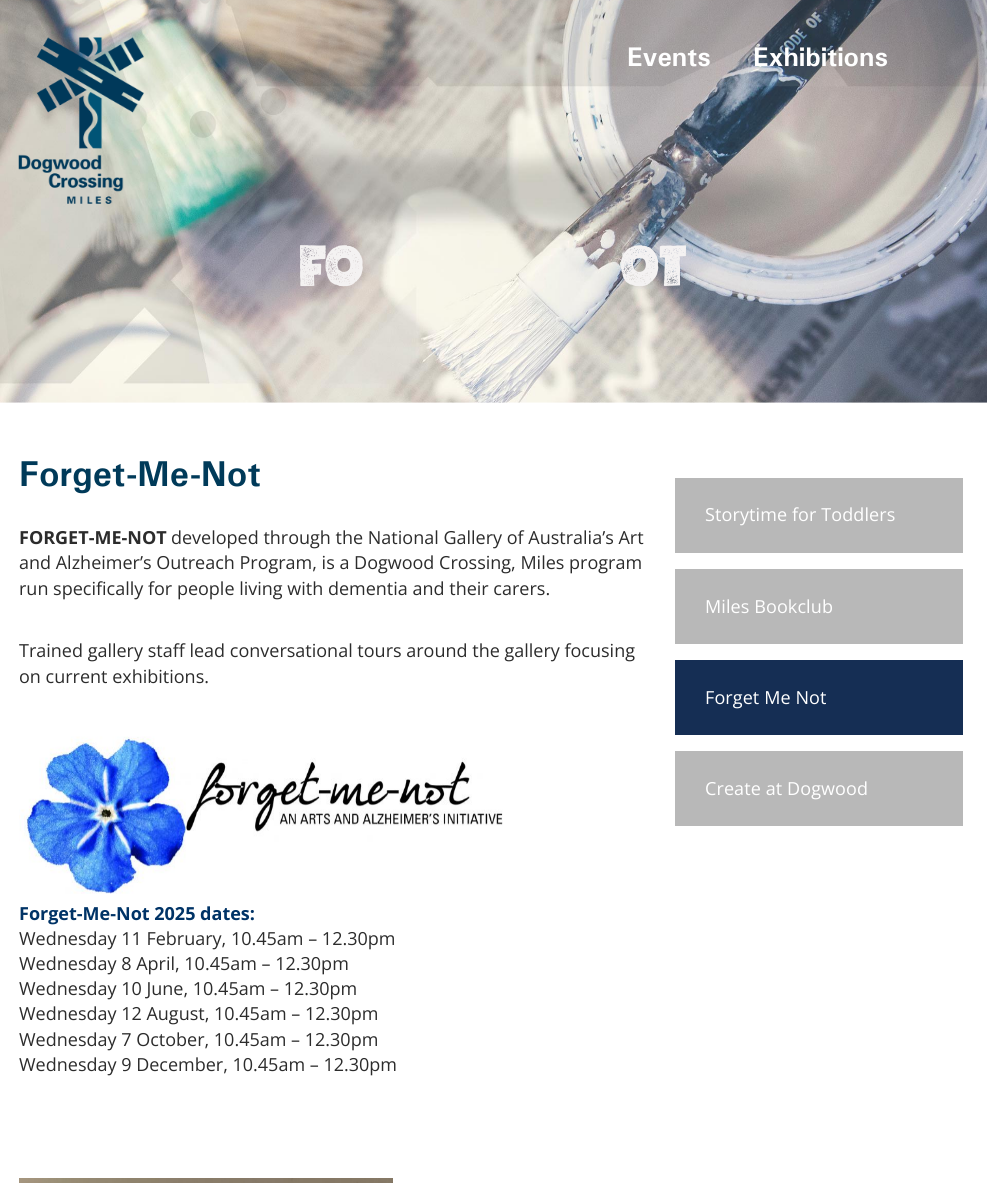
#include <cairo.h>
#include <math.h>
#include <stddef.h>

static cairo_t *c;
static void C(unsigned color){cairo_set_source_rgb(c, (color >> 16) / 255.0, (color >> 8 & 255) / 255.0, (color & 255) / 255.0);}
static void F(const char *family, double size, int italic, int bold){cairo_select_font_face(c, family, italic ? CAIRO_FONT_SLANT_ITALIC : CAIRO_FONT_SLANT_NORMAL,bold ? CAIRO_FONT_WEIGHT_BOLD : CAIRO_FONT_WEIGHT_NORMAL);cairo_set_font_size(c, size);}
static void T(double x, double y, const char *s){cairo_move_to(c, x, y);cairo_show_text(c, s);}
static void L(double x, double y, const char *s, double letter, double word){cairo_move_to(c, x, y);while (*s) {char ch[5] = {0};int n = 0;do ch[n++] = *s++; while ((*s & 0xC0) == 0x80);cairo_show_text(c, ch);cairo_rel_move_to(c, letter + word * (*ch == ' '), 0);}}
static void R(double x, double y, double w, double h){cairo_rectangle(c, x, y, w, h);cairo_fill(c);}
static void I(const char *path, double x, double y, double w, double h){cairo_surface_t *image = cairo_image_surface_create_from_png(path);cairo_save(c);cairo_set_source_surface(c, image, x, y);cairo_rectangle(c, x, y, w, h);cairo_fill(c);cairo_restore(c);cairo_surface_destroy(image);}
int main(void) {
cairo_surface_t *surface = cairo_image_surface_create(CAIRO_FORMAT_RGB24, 987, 1183);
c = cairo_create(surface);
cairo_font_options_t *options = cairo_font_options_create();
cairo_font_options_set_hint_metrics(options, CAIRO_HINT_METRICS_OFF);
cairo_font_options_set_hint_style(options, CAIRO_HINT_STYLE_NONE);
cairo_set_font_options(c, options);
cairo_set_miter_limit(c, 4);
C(0xffffff);
cairo_paint(c);
I("2.png",0,0,987,403);
I("1.png",18,37,126,167);
F("univers",27,0,1);
C(0xffffff);
T(627,66,"Events");
T(753,66,"Exhibitions");
F("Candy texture",54,0,0);
C(0xf4f2f2);
T(300,286,"FO");
T(621,286,"OT");
F("univers",36,0,1);
C(0x003a59);
T(19,486,"Forget-Me-Not");
F("Open Sans",18,0,1);
C(0x2c2c2c);
T(19,544,"FORGET-ME-NOT");
F("Open Sans",18,0,0);
T(171,544,"developed through the National Gallery of Australia’s Art");
T(19,569,"and Alzheimer’s Outreach Program, is a Dogwood Crossing, Miles program");
T(19,595,"run specifically for people living with dementia and their carers.");
T(19,657,"Trained gallery staff lead conversational tours around the gallery focusing");
T(19,683,"on current exhibitions.");
I("3.png",19,736,484,158);
F("Open Sans",18,0,1);
C(0x003366);
T(19,920,"Forget-Me-Not 2025 dates:");
F("Open Sans",18,0,0);
C(0x2c2c2c);
T(19,945,"Wednesday 11 February, 10.45am – 12.30pm");
T(19,970,"Wednesday 8 April, 10.45am – 12.30pm");
T(19,995,"Wednesday 10 June, 10.45am – 12.30pm");
T(19,1020,"Wednesday 12 August, 10.45am – 12.30pm");
T(19,1046,"Wednesday 7 October, 10.45am – 12.30pm");
T(19,1071,"Wednesday 9 December, 10.45am – 12.30pm");
I("4.png",19,1178,374,5);
C(0xb8b8b8);
R(675,478,288,75);
C(0xffffff);
L(705,521,"Storytime for Toddlers",.1,0);
C(0xb8b8b8);
R(675,569,288,75);
C(0xffffff);
L(705,613,"Miles Bookclub",.1,0);
C(0x152e54);
R(675,660,288,75);
C(0xffffff);
L(705,704,"Forget Me Not",.1,0);
C(0xb8b8b8);
R(675,751,288,75);
C(0xffffff);
L(705,795,"Create at Dogwood",.1,0);
cairo_surface_write_to_png(surface, "o.png");
cairo_font_options_destroy(options);
cairo_destroy(c);
cairo_surface_destroy(surface);
return 0;
}
